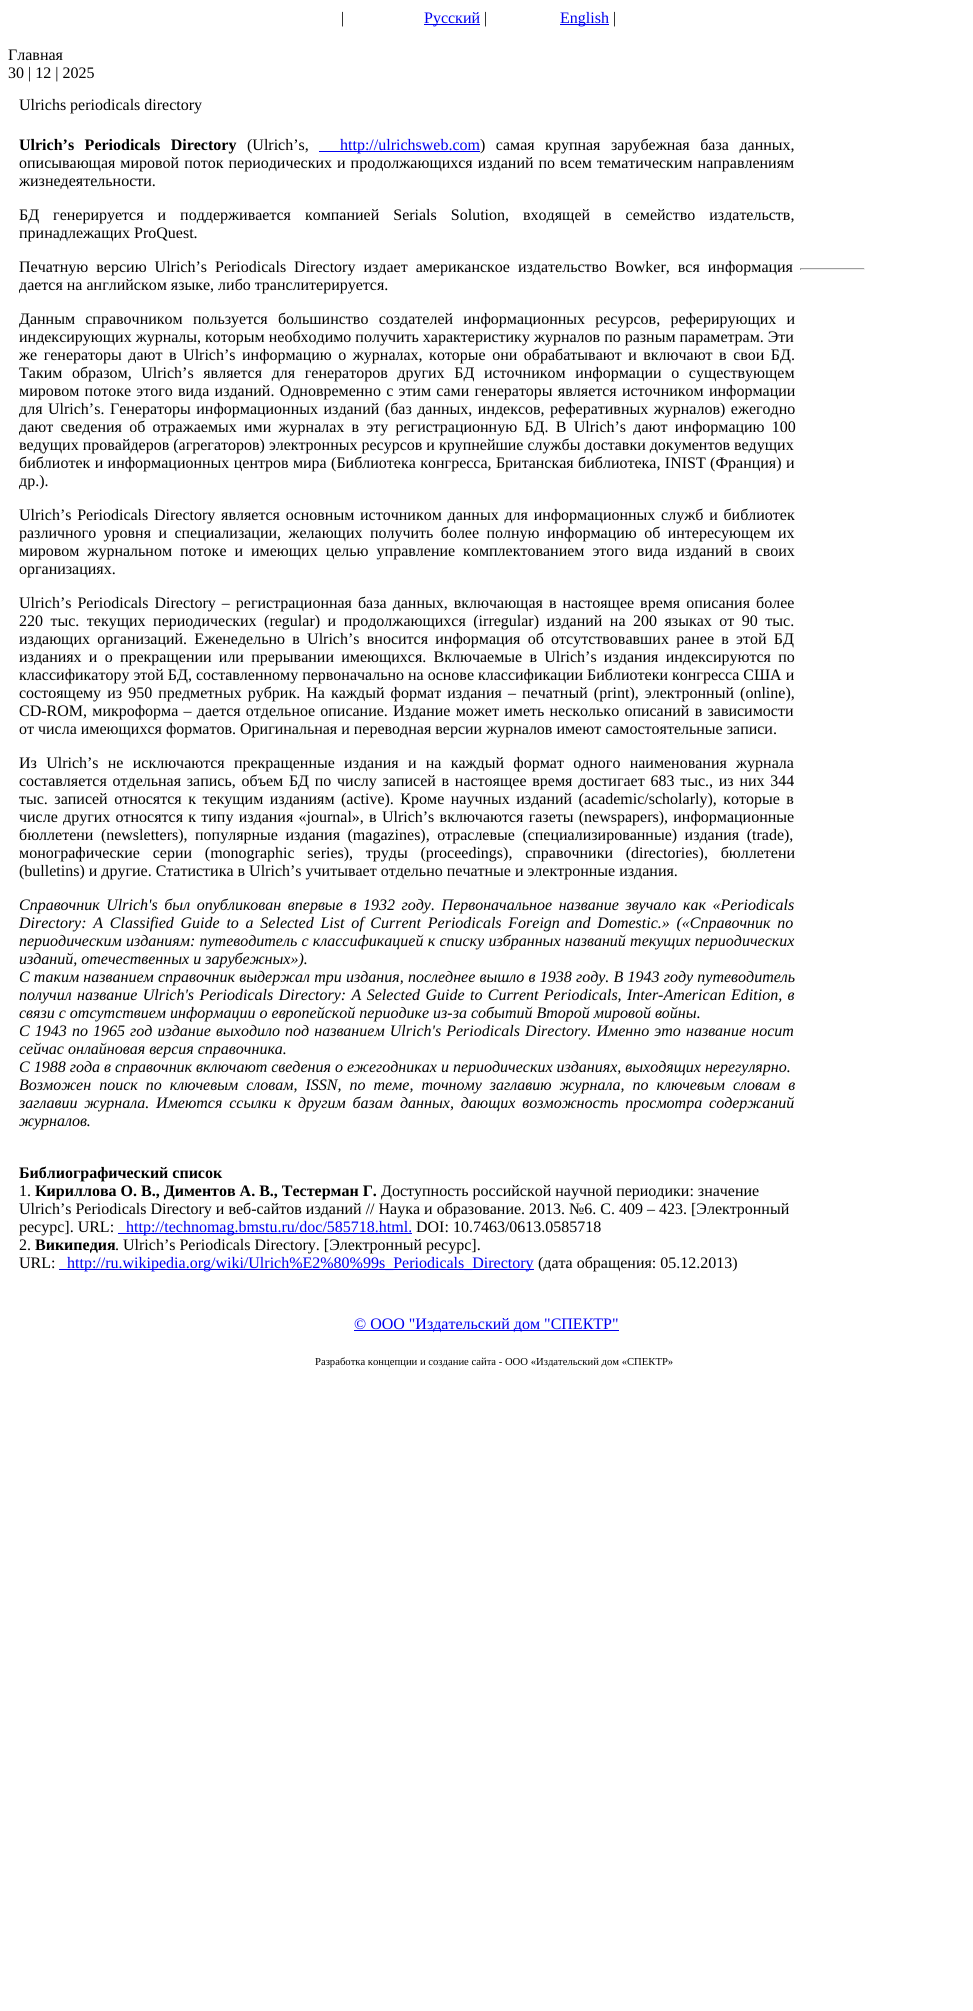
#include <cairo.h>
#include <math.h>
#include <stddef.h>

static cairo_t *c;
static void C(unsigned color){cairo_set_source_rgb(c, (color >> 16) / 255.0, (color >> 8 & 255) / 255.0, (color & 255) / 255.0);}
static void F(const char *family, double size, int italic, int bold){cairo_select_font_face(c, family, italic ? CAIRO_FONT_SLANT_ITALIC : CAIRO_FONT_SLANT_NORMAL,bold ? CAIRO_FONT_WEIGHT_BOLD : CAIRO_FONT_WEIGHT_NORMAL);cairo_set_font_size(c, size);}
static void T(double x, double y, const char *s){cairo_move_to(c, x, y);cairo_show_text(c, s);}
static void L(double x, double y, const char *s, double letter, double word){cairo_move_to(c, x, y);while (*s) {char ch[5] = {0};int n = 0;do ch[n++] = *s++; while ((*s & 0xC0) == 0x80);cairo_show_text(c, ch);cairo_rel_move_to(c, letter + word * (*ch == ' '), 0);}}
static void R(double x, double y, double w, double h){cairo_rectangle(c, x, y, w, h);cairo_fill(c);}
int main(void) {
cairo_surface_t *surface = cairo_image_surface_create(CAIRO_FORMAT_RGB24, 973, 2011);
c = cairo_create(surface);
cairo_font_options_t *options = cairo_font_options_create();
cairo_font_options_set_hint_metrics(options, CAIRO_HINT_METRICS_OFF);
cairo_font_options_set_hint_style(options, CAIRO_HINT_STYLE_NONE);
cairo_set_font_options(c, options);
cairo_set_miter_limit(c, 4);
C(0xffffff);
cairo_paint(c);
F("Liberation Serif",16,0,0);
C(0x000000);
T(341,23,"|");
C(0x0000ee);
R(424,24,56,1);
T(424,23,"Русский");
C(0x000000);
T(484,23,"|");
C(0x0000ee);
R(560,24,49,1);
T(560,23,"English");
C(0x000000);
T(613,23,"|");
T(8,60,"Главная");
T(8,78,"30 | 12 | 2025");
T(19,110,"Ulrichs periodicals directory");
F("Liberation Serif",16,0,1);
L(19,150,"Ulrich’s Periodicals Directory",0,6.5);
F("Liberation Serif",16,0,0);
T(247,150,"(Ulrich’s,");
C(0x0000ee);
R(319,151,161,1);
T(340,150,"http://ulrichsweb.com");
C(0x000000);
L(480,150,") самая крупная зарубежная база данных,",0,6.5);
L(19,168,"описывающая мировой поток периодических и продолжающихся изданий по всем тематическим направлениям",0,1);
T(19,186,"жизнедеятельности.");
L(19,220,"БД генерируется и поддерживается компанией Serials Solution, входящей в семейство издательств,",0,10);
T(19,238,"принадлежащих ProQuest.");
L(19,272,"Печатную версию Ulrich’s Periodicals Directory издает американское издательство Bowker, вся информация",0,4);
T(19,290,"дается на английском языке, либо транслитерируется.");
L(19,324,"Данным справочником пользуется большинство создателей информационных ресурсов, реферирующих и",0,6.25);
T(19,342,"индексирующих журналы, которым необходимо получить характеристику журналов по разным параметрам. Эти");
L(19,360,"же генераторы дают в Ulrich’s информацию о журналах, которые они обрабатывают и включают в свои БД.",0,2.5);
L(19,378,"Таким образом, Ulrich’s является для генераторов других БД источником информации о существующем",0,5.6);
L(19,396,"мировом потоке этого вида изданий. Одновременно с этим сами генераторы является источником информации",0,1.25);
L(19,414,"для Ulrich’s. Генераторы информационных изданий (баз данных, индексов, реферативных журналов) ежегодно",0,1.5);
L(19,432,"дают сведения об отражаемых ими журналах в эту регистрационную БД. В Ulrich’s дают информацию 100",0,3.25);
T(19,450,"ведущих провайдеров (агрегаторов) электронных ресурсов и крупнейшие службы доставки документов ведущих");
L(19,468,"библиотек и информационных центров мира (Библиотека конгресса, Британская библиотека, INIST (Франция) и",0,.4);
T(19,486,"др.).");
L(19,520,"Ulrich’s Periodicals Directory является основным источником данных для информационных служб и библиотек",0,1.75);
L(19,538,"различного уровня и специализации, желающих получить более полную информацию об интересующем их",0,3.4);
L(19,556,"мировом журнальном потоке и имеющих целью управление комплектованием этого вида изданий в своих",0,4);
T(19,574,"организациях.");
L(19,608,"Ulrich’s Periodicals Directory – регистрационная база данных, включающая в настоящее время описания более",0,2);
L(19,626,"220 тыс. текущих периодических (regular) и продолжающихся (irregular) изданий на 200 языках от 90 тыс.",0,3.5);
L(19,644,"издающих организаций. Еженедельно в Ulrich’s вносится информация об отсутствовавших ранее в этой БД",0,3.25);
L(19,662,"изданиях и о прекращении или прерывании имеющихся. Включаемые в Ulrich’s издания индексируются по",0,3.25);
T(19,680,"классификатору этой БД, составленному первоначально на основе классификации Библиотеки конгресса США и");
L(19,698,"состоящему из 950 предметных рубрик. На каждый формат издания – печатный (print), электронный (online),",0,2.1);
L(19,716,"CD-ROM, микроформа – дается отдельное описание. Издание может иметь несколько описаний в зависимости",0,1.25);
T(19,734,"от числа имеющихся форматов. Оригинальная и переводная версии журналов имеют самостоятельные записи.");
L(19,768,"Из Ulrich’s не исключаются прекращенные издания и на каждый формат одного наименования журнала",0,5.25);
L(19,786,"составляется отдельная запись, объем БД по числу записей в настоящее время достигает 683 тыс., из них 344",0,1.75);
L(19,804,"тыс. записей относятся к текущим изданиям (active). Кроме научных изданий (academic/scholarly), которые в",0,2.5);
L(19,822,"числе других относятся к типу издания «journal», в Ulrich’s включаются газеты (newspapers), информационные",0,1.25);
L(19,840,"бюллетени (newsletters), популярные издания (magazines), отраслевые (специализированные) издания (trade),",0,3.5);
L(19,858,"монографические серии (monographic series), труды (proceedings), справочники (directories), бюллетени",0,8.75);
T(19,876,"(bulletins) и другие. Статистика в Ulrich’s учитывает отдельно печатные и электронные издания.");
F("Liberation Serif",16,1,0);
L(19,910,"Справочник Ulrich's был опубликован впервые в 1932 году. Первоначальное название звучало как «Periodicals",0,2.6);
L(19,928,"Directory: A Classified Guide to a Selected List of Current Periodicals Foreign and Domestic.» («Справочник по",0,2.75);
L(19,946,"периодическим изданиям: путеводитель с классификацией к списку избранных названий текущих периодических",0,.25);
T(19,964,"изданий, отечественных и зарубежных»).");
L(19,982,"С таким названием справочник выдержал три издания, последнее вышло в 1938 году. В 1943 году путеводитель",0,.2);
L(19,1000,"получил название Ulrich's Periodicals Directory: A Selected Guide to Current Periodicals, Inter-American Edition, в",0,1.4);
T(19,1018,"связи с отсутствием информации о европейской периодике из-за событий Второй мировой войны.");
L(19,1036,"С 1943 по 1965 год издание выходило под названием Ulrich's Periodicals Directory. Именно это название носит",0,1.1);
T(19,1054,"сейчас онлайновая версия справочника.");
T(19,1072,"С 1988 года в справочник включают сведения о ежегодниках и периодических изданиях, выходящих нерегулярно.");
L(19,1090,"Возможен поиск по ключевым словам, ISSN, по теме, точному заглавию журнала, по ключевым словам в",0,4);
L(19,1108,"заглавии журнала. Имеются ссылки к другим базам данных, дающих возможность просмотра содержаний",0,2.9);
T(19,1126,"журналов.");
F("Liberation Serif",16,0,1);
T(19,1178,"Библиографический список");
F("Liberation Serif",16,0,0);
T(19,1196,"1.");
F("Liberation Serif",16,0,1);
T(35,1196,"Кириллова О. В., Диментов А. В., Тестерман Г.");
F("Liberation Serif",16,0,0);
T(381,1196,"Доступность российской научной периодики: значение");
T(19,1214,"Ulrich’s Periodicals Directory и веб-сайтов изданий // Наука и образование. 2013. №6. С. 409 – 423. [Электронный");
T(19,1232,"ресурс]. URL:");
C(0x0000ee);
R(118,1233,294,1);
T(126,1232,"http://technomag.bmstu.ru/doc/585718.html.");
C(0x000000);
T(416,1232,"DOI: 10.7463/0613.0585718");
T(19,1250,"2.");
F("Liberation Serif",16,0,1);
T(35,1250,"Википедия");
F("Liberation Serif",16,0,0);
T(115,1250,". Ulrich’s Periodicals Directory. [Электронный ресурс].");
T(19,1268,"URL:");
C(0x0000ee);
R(59,1269,475,1);
T(67,1268,"http://ru.wikipedia.org/wiki/Ulrich%E2%80%99s_Periodicals_Directory");
C(0x000000);
T(538,1268,"(дата обращения: 05.12.2013)");
C(0x9f9f9f);
R(800,268,65,1);
C(0xeeeeee);
R(864,268,1,2);
R(800,269,65,1);
C(0x9f9f9f);
R(800,268,1,2);
C(0x0000ee);
R(354,1330,265,1);
T(354,1329,"© ООО \"Издательский дом \"СПЕКТР\"");
F("Liberation Serif",10.65,0,0);
C(0x000000);
T(315,1365,"Разработка концепции и создание сайта - ООО «Издательский дом «СПЕКТР»");
cairo_surface_write_to_png(surface, "o.png");
cairo_font_options_destroy(options);
cairo_destroy(c);
cairo_surface_destroy(surface);
return 0;
}
